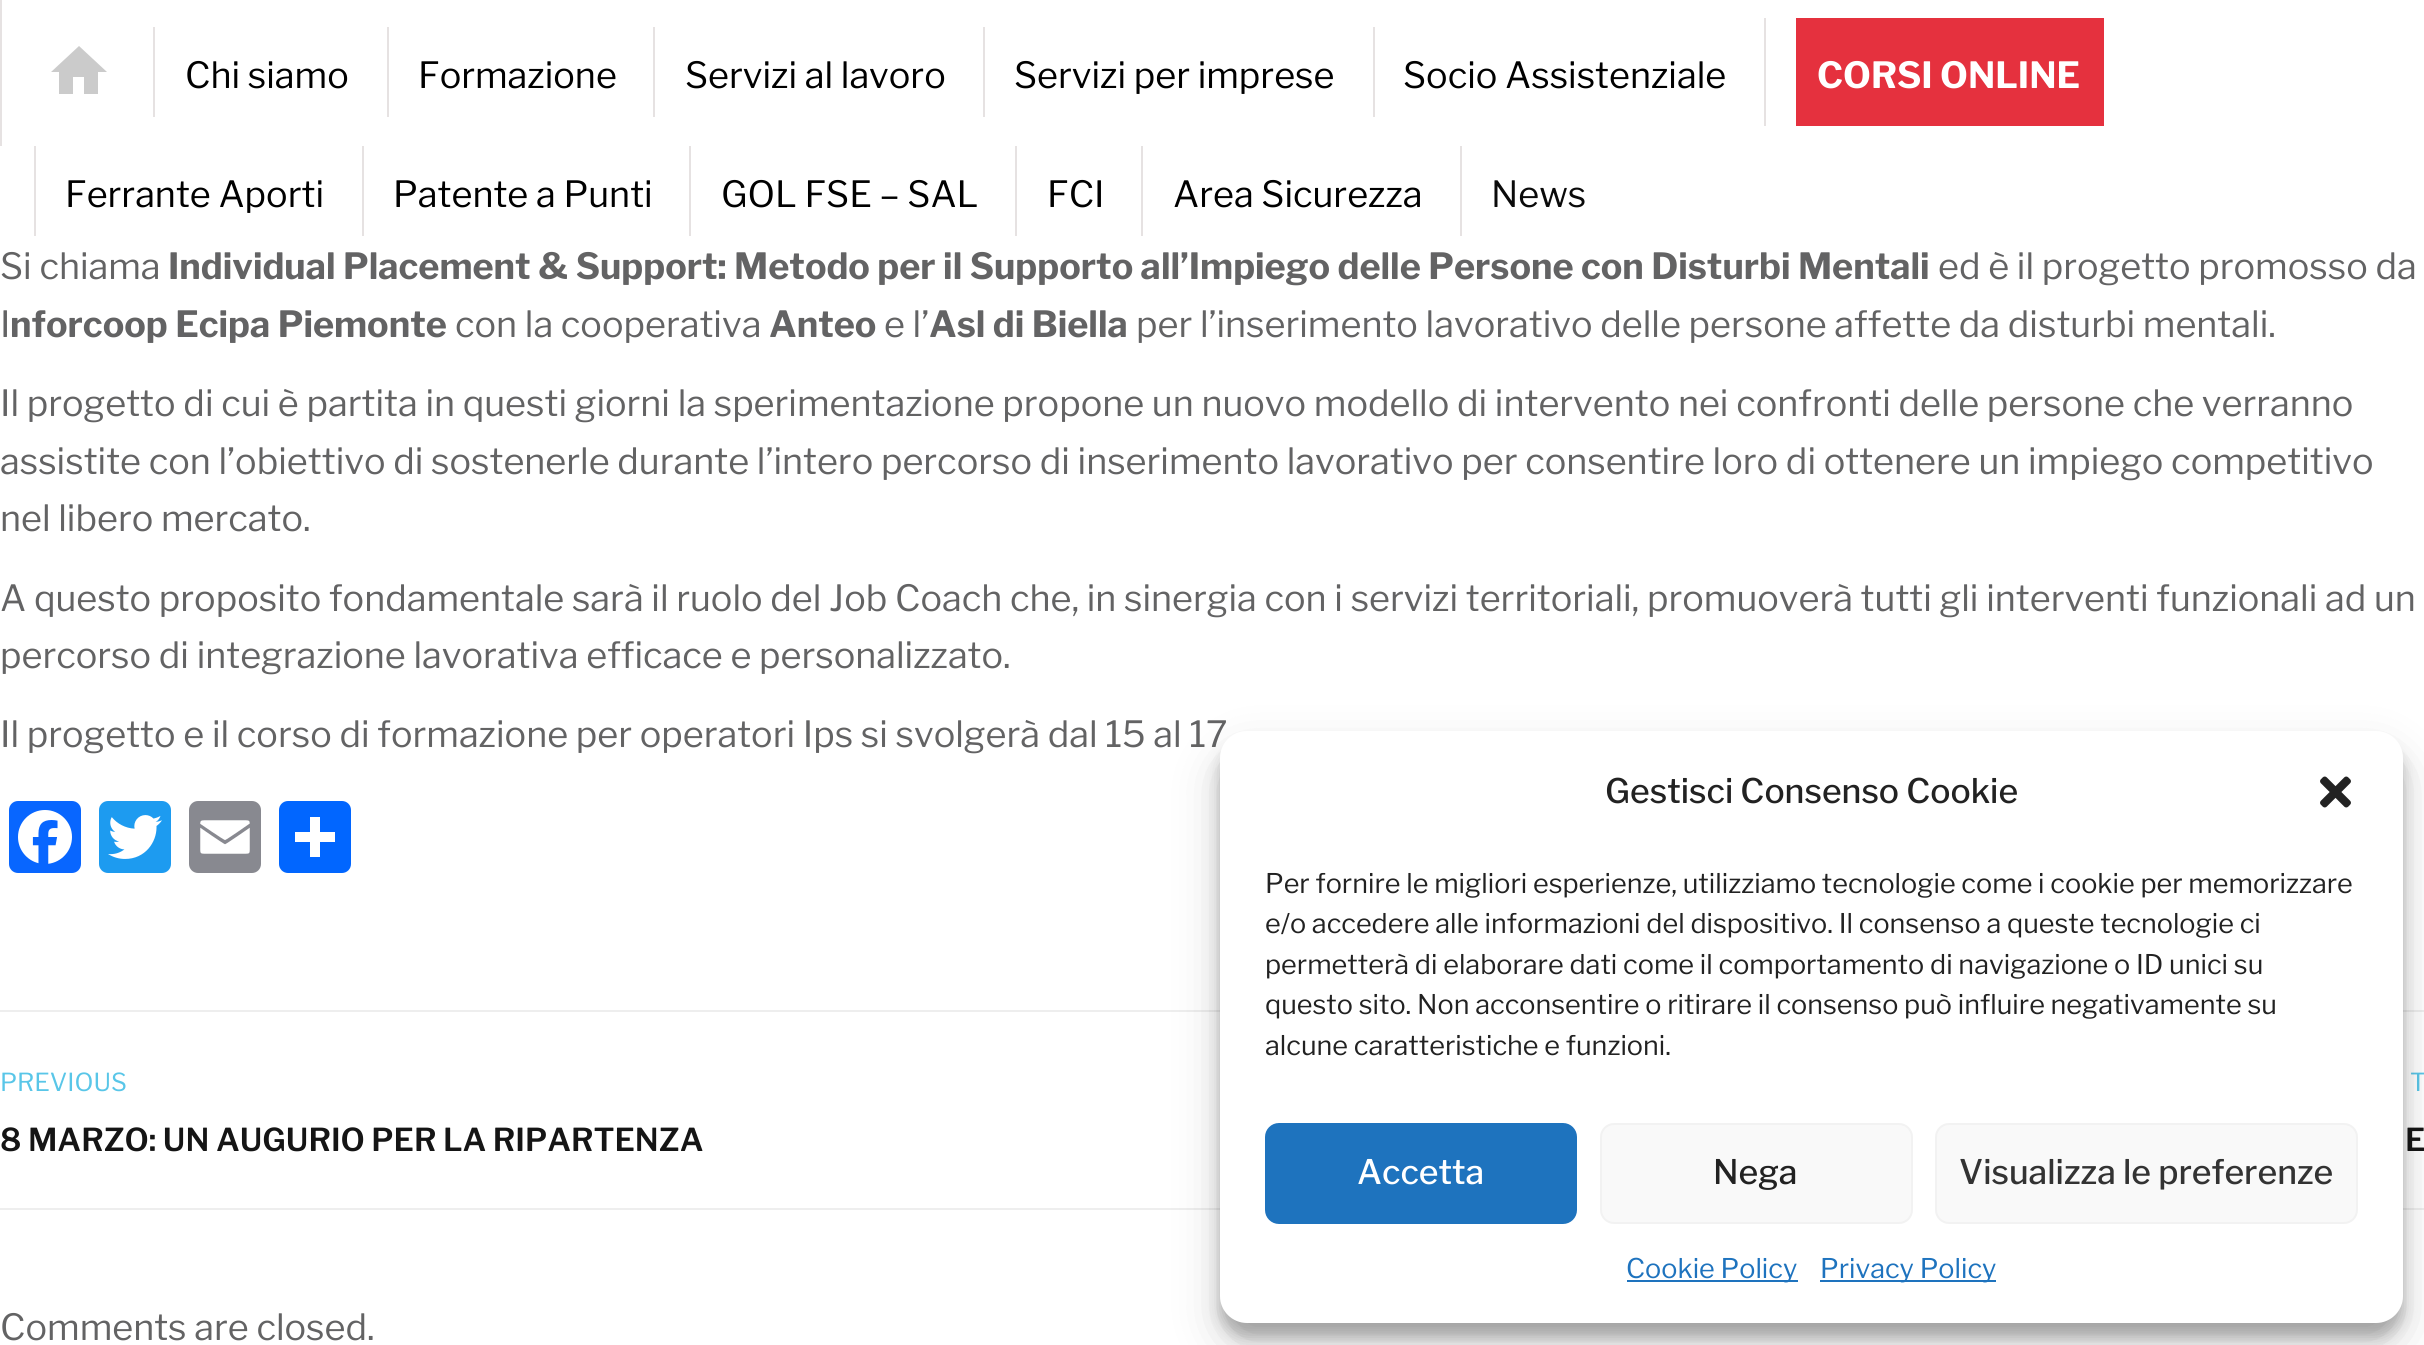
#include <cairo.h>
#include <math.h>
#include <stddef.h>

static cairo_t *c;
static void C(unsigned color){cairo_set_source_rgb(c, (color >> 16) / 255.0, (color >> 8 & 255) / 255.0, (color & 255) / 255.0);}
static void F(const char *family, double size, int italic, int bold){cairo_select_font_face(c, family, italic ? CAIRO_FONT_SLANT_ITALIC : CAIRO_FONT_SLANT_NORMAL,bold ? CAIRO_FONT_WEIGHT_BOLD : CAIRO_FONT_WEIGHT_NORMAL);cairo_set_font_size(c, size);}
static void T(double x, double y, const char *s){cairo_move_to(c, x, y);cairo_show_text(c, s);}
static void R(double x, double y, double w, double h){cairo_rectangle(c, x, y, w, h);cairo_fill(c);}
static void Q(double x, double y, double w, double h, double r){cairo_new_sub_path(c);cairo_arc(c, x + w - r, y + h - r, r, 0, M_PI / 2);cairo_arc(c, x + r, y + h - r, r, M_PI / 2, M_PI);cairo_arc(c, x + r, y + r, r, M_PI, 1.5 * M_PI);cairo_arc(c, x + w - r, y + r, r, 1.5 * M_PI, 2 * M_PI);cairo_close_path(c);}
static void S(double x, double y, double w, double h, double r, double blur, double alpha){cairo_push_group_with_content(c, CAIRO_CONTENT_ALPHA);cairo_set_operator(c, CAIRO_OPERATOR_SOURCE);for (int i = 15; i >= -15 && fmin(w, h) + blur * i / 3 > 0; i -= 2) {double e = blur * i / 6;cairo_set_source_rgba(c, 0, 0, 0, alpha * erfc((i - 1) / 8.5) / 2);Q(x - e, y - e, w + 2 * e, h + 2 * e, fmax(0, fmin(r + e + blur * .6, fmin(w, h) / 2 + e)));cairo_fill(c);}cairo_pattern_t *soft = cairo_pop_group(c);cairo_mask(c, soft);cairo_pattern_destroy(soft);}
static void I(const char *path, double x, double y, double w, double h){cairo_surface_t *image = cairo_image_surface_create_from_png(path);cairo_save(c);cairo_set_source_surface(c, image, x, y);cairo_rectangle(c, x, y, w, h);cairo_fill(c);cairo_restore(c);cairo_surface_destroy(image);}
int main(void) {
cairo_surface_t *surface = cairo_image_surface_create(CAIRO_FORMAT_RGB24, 2424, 1345);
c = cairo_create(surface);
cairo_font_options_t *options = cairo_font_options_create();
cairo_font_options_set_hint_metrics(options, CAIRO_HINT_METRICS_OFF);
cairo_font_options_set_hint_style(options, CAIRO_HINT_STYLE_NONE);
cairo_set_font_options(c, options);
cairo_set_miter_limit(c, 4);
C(0xffffff);
cairo_paint(c);
C(0xe6e2e2);
R(0,0,2,146);
C(0xcbcbcb);
cairo_new_path(c);
cairo_move_to(c,73,94);
cairo_line_to(c,73,77);
cairo_line_to(c,84,77);
cairo_line_to(c,84,94);
cairo_line_to(c,98,94);
cairo_line_to(c,98,72);
cairo_line_to(c,107,72);
cairo_line_to(c,79,46);
cairo_line_to(c,51,72);
cairo_line_to(c,59,72);
cairo_line_to(c,59,94);
cairo_close_path(c);
cairo_fill(c);
C(0xe6e2e2);
R(153,27,2,90);
F("Libre Franklin",36,0,0);
C(0x000000);
T(185,88,"Chi siamo");
C(0xe6e2e2);
R(387,27,2,90);
C(0x000000);
T(418,88,"Formazione");
C(0xe6e2e2);
R(653,27,2,90);
C(0x000000);
T(685,88,"Servizi al lavoro");
C(0xe6e2e2);
R(983,27,2,90);
C(0x000000);
T(1014,88,"Servizi per imprese");
C(0xe6e2e2);
R(1373,27,2,90);
C(0x000000);
T(1403,88,"Socio Assistenziale");
C(0xe6e2e2);
R(1764,18,2,108);
C(0xe5313e);
R(1796,18,308,108);
F("Libre Franklin",36,0,1);
C(0xffffff);
T(1817,88,"CORSI ONLINE");
C(0xe6e2e2);
R(34,146,2,90);
F("Libre Franklin",36,0,0);
C(0x000000);
T(65,207,"Ferrante Aporti");
C(0xe6e2e2);
R(362,146,2,90);
C(0x000000);
T(393,207,"Patente a Punti");
C(0xe6e2e2);
R(689,146,2,90);
C(0x000000);
T(721,207,"GOL FSE – SAL");
C(0xe6e2e2);
R(1015,146,2,90);
C(0x000000);
T(1047,207,"FCI");
C(0xe6e2e2);
R(1141,146,2,90);
C(0x000000);
T(1173,207,"Area Sicurezza");
C(0xe6e2e2);
R(1460,146,2,90);
C(0x0a0a0a);
T(1491,207,"News");
C(0x636364);
T(0,279,"Si chiama");
F("Libre Franklin",36,0,1);
T(168,279,"Individual Placement & Support: Metodo per il Supporto all’Impiego delle Persone con Disturbi Mentali");
F("Libre Franklin",36,0,0);
T(1938,279,"ed è il progetto promosso da");
T(0,337,"I");
F("Libre Franklin",36,0,1);
T(10,337,"nforcoop Ecipa Piemonte");
F("Libre Franklin",36,0,0);
T(455,337,"con la cooperativa");
F("Libre Franklin",36,0,1);
T(769,337,"Anteo");
F("Libre Franklin",36,0,0);
T(884,337,"e l’");
F("Libre Franklin",36,0,1);
T(929,337,"Asl di Biella");
F("Libre Franklin",36,0,0);
T(1136,337,"per l’inserimento lavorativo delle persone affette da disturbi mentali.");
T(0,416,"Il progetto di cui è partita in questi giorni la sperimentazione propone un nuovo modello di intervento nei confronti delle persone che verranno");
T(0,474,"assistite con l’obiettivo di sostenerle durante l’intero percorso di inserimento lavorativo per consentire loro di ottenere un impiego competitivo");
T(0,531,"nel libero mercato.");
T(0,611,"A questo proposito fondamentale sarà il ruolo del Job Coach che, in sinergia con i servizi territoriali, promuoverà tutti gli interventi funzionali ad un");
T(0,668,"percorso di integrazione lavorativa efficace e personalizzato.");
T(0,747,"Il progetto e il corso di formazione per operatori Ips si svolgerà dal 15 al 17");
C(0x0866ff);
Q(9,801,72,72,9);
cairo_fill(c);
I("1.png",18,810,54,54);
C(0x1d9bf0);
Q(99,801,72,72,9);
cairo_fill(c);
I("2.png",108,815,54,44);
C(0x888990);
Q(189,801,72,72,9);
cairo_fill(c);
I("3.png",200,820,50,34);
C(0x0166ff);
Q(279,801,72,72,9);
cairo_fill(c);
C(0xffffff);
R(310,817,10,40);
R(295,832,40,10);
C(0xeeeeee);
R(0,1010,2424,2);
R(0,1208,2424,2);
F("Libre Franklin",24.75,0,0);
C(0x59c6e8);
T(0,1091,"PREVIOUS");
F("Libre Franklin SemiBold",31.5,0,0);
C(0x151515);
T(0,1151,"8 MARZO: UN AUGURIO PER LA RIPARTENZA");
F("Libre Franklin",24.75,0,0);
C(0x59c6e8);
T(2410,1091,"T");
F("Libre Franklin SemiBold",31.5,0,0);
C(0x151515);
T(2405,1151,"E");
F("Libre Franklin",36,0,0);
C(0x636364);
T(0,1340,"Comments are closed.");
C(0x000000);
S(1220,745,1183,592,27,7,.23);
S(1220,754,1183,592,27,22.5,.19);
C(0xffffff);
Q(1220,731,1183,592,27);
cairo_fill(c);
F("Libre Franklin Medium",33.75,0,0);
C(0x222222);
T(1605,803,"Gestisci Consenso Cookie");
I("4.png",2320,776,31,32);
F("Libre Franklin",27,0,0);
T(1265,893,"Per fornire le migliori esperienze, utilizziamo tecnologie come i cookie per memorizzare");
T(1265,933,"e/o accedere alle informazioni del dispositivo. Il consenso a queste tecnologie ci");
T(1265,974,"permetterà di elaborare dati come il comportamento di navigazione o ID unici su");
T(1265,1014,"questo sito. Non acconsentire o ritirare il consenso può influire negativamente su");
T(1265,1055,"alcune caratteristiche e funzioni.");
C(0x1e73be);
Q(1266,1124,310,99,13);
cairo_fill_preserve(c);
cairo_stroke(c);
F("Libre Franklin Medium",33.75,0,0);
C(0xffffff);
T(1357,1184,"Accetta");
C(0xf9f9f9);
Q(1601,1124,311,99,13);
cairo_fill_preserve(c);
C(0xf2f2f2);
cairo_stroke(c);
C(0x222222);
T(1713,1184,"Nega");
C(0xf9f9f9);
Q(1936,1124,421,99,13);
cairo_fill_preserve(c);
C(0xf2f2f2);
cairo_stroke(c);
C(0x333333);
T(1959,1184,"Visualizza le preferenze");
C(0x1e73be);
R(1627,1280,171,2);
F("Libre Franklin",27,0,0);
T(1626,1278,"Cookie Policy");
R(1820,1280,176,2);
T(1820,1278,"Privacy Policy");
cairo_surface_write_to_png(surface, "o.png");
cairo_font_options_destroy(options);
cairo_destroy(c);
cairo_surface_destroy(surface);
return 0;
}
